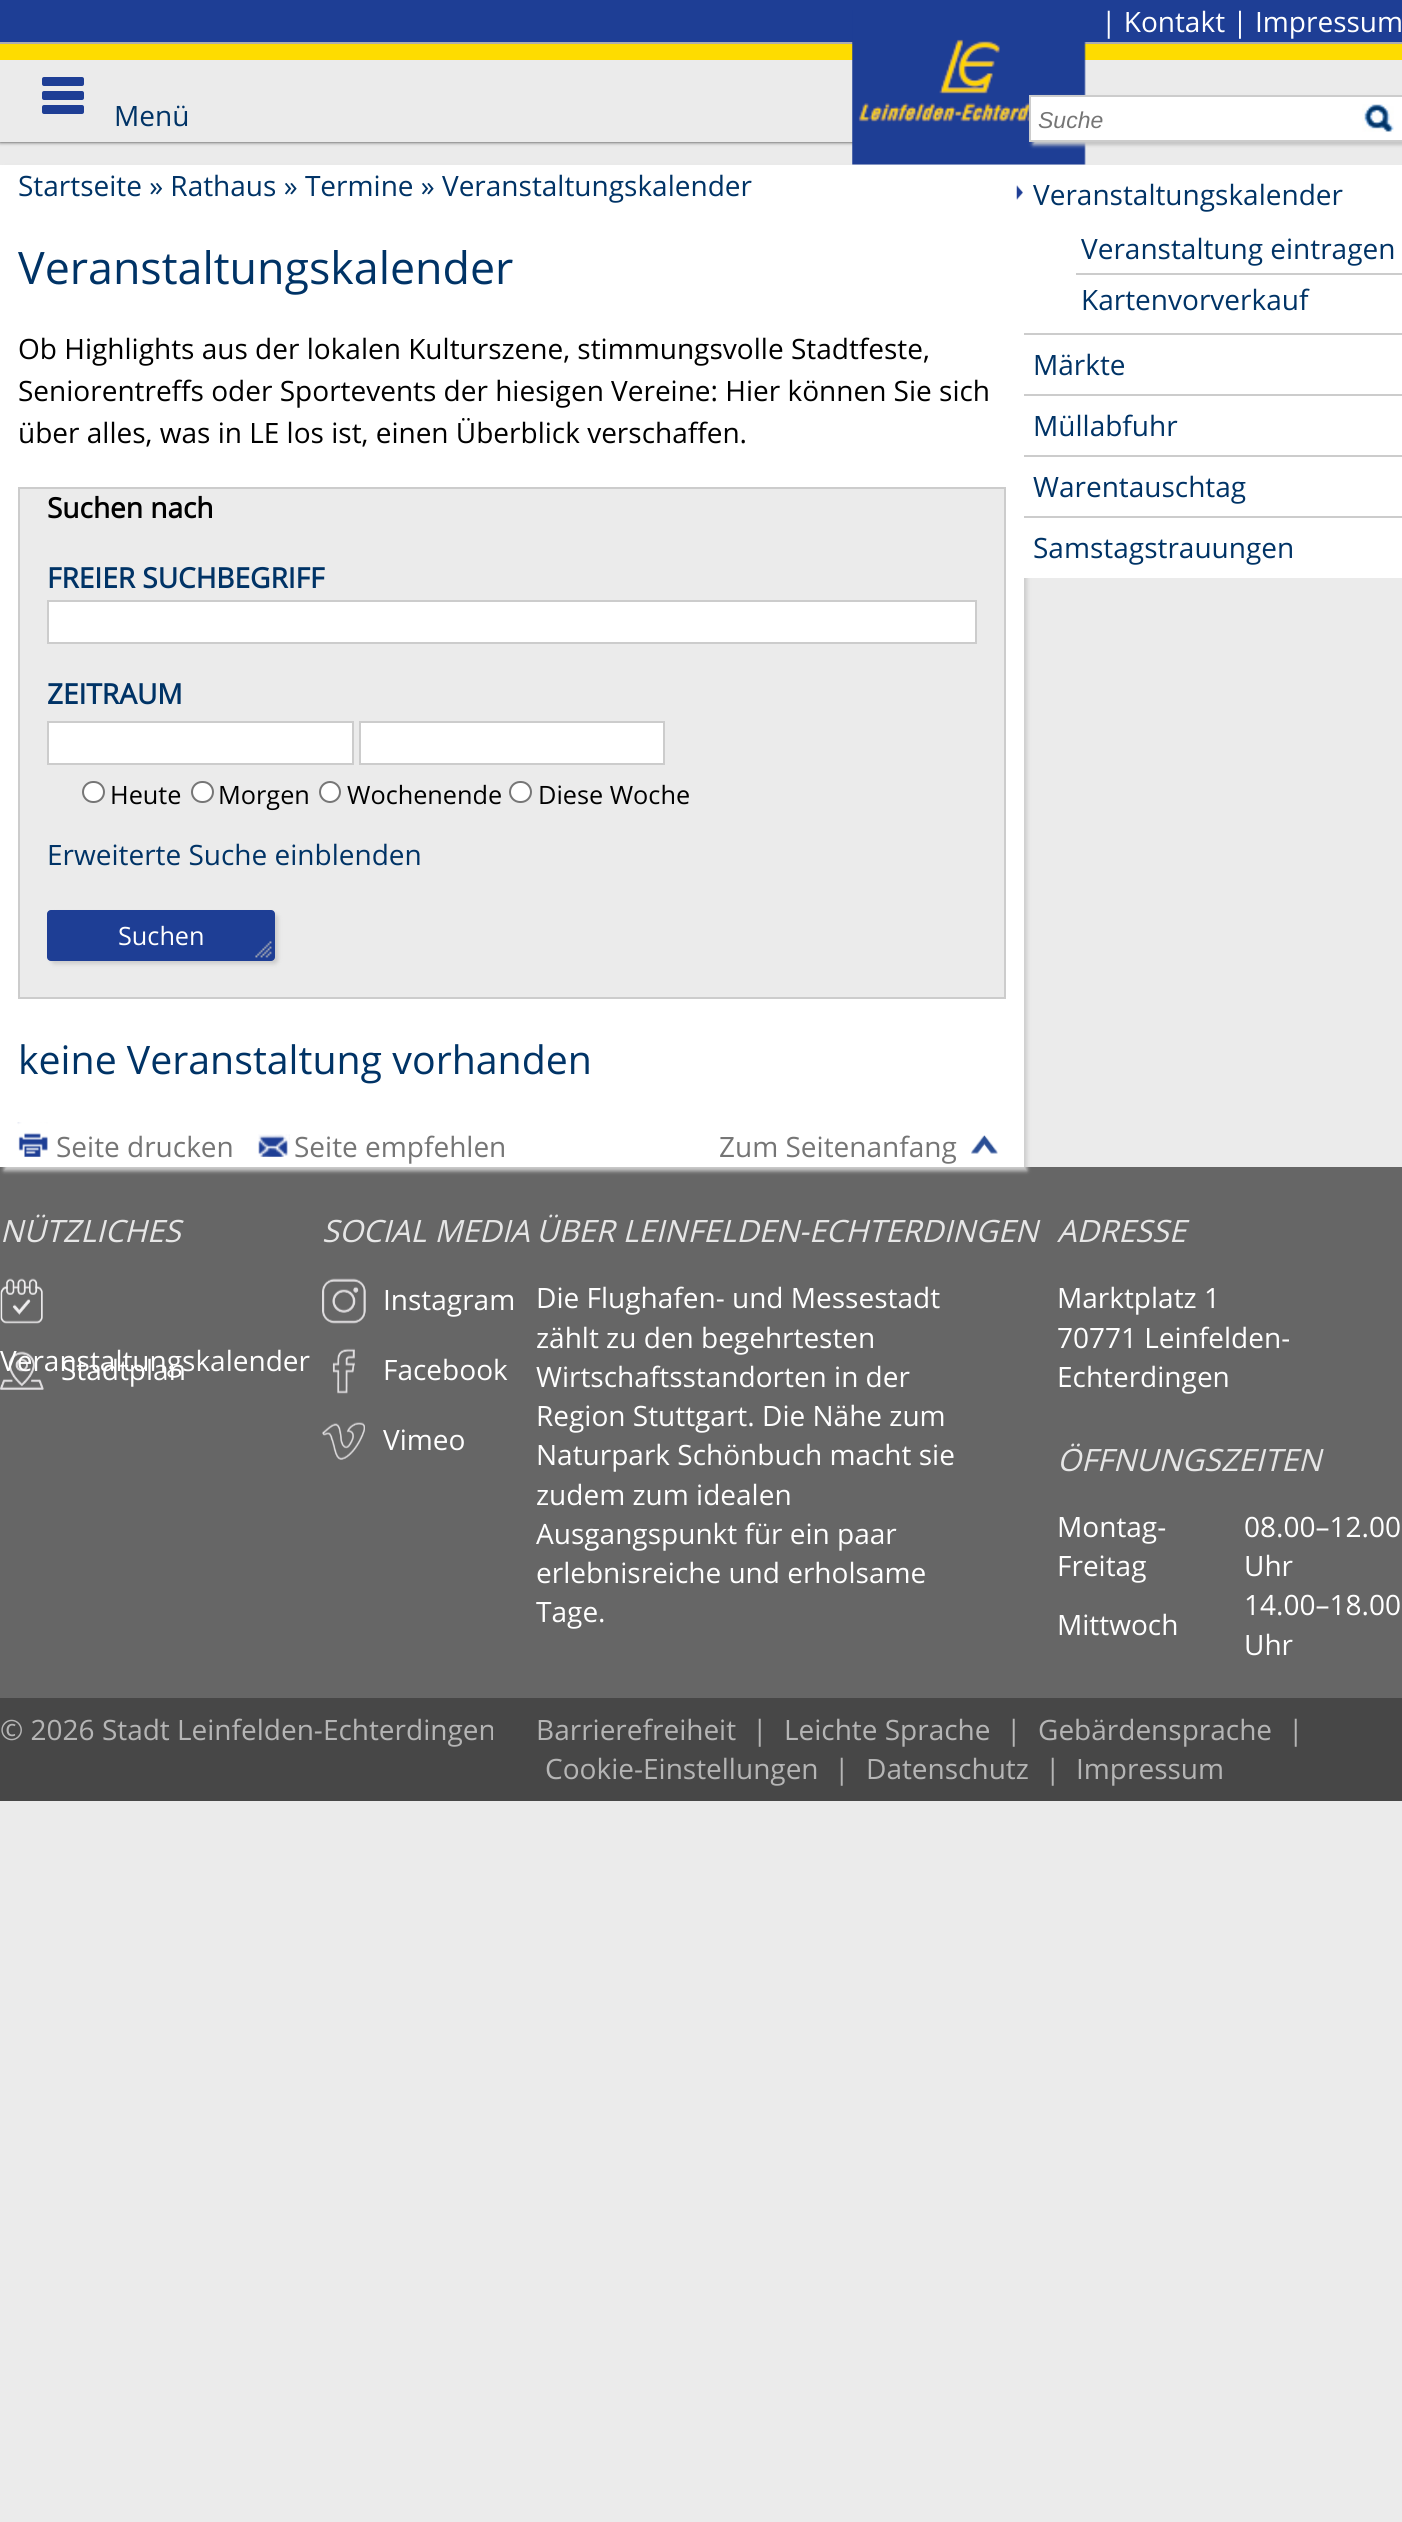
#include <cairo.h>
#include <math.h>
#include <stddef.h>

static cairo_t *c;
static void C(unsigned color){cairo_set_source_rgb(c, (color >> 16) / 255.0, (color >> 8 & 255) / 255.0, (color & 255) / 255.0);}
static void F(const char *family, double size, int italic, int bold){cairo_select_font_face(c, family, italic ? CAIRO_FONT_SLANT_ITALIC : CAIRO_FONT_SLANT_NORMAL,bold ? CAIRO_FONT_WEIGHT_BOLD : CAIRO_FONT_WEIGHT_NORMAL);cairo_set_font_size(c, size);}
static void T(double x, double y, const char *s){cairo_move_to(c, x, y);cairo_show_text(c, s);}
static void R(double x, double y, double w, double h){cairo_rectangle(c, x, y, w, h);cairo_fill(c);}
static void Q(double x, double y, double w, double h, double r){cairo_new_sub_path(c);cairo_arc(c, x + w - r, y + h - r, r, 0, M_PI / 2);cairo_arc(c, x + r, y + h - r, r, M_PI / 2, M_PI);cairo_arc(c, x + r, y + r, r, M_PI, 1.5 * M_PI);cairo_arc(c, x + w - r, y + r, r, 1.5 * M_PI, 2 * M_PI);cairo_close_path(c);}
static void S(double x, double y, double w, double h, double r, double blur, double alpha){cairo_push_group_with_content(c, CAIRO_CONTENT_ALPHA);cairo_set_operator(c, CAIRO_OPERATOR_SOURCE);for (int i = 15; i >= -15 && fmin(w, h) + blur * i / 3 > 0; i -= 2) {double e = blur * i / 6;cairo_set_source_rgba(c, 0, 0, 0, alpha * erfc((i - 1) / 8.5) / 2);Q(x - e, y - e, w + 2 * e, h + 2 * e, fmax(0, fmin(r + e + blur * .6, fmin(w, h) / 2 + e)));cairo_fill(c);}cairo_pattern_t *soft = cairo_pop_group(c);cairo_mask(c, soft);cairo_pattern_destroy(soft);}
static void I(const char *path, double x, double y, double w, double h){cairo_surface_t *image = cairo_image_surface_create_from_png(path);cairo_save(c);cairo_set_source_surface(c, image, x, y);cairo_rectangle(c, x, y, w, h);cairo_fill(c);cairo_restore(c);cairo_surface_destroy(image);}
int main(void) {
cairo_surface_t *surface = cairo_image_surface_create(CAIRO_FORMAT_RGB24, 1402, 2522);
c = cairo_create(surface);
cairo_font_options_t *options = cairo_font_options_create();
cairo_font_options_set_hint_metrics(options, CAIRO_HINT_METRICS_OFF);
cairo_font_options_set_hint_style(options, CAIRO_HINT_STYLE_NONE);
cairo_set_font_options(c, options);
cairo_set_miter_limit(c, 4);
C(0xebebeb);
cairo_paint(c);
C(0x333333);
S(0,0,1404,142,0,2,1);
C(0xebebeb);
R(0,60,1402,82);
C(0x1e3e95);
R(0,0,1402,42);
C(0xadadad);
R(0,42,1402,2);
C(0xfedc00);
R(0,44,1402,16);
C(0x666666);
R(0,1167,1402,531);
C(0xcccccc);
S(4,168,1023,1003,0,2,1);
I("1.png",852,10,234,155);
F("Open Sans",28,0,0);
C(0xffffff);
T(1101,32,"| Kontakt | Impressum");
C(0x1e3e95);
Q(42,77,42,9,2);
cairo_fill(c);
Q(42,91,42,9,2);
cairo_fill(c);
Q(42,105,42,9,2);
cairo_fill(c);
C(0x003366);
T(114,126,"Menü");
C(0xcccccc);
S(1033,98,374,47,0,2,1);
C(0xffffff);
cairo_rectangle(c,1030,96,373,45);
cairo_fill_preserve(c);
C(0xcccccc);
cairo_stroke(c);
F("Liberation Sans",23,1,0);
C(0x757575);
T(1038,128,"Suche");
I("2.png",1362,104,32,28);
C(0xffffff);
R(0,165,1024,1002);
F("Open Sans",28,0,0);
C(0x003366);
T(18,196,"Startseite » Rathaus » Termine » Veranstaltungskalender");
F("Open Sans",44.75,0,0);
T(18,284,"Veranstaltungskalender");
F("Open Sans",28,0,0);
C(0x000000);
T(18,359,"Ob Highlights aus der lokalen Kulturszene, stimmungsvolle Stadtfeste,");
T(18,401,"Seniorentreffs oder Sportevents der hiesigen Vereine: Hier können Sie sich");
T(18,443,"über alles, was in LE los ist, einen Überblick verschaffen.");
C(0xebebeb);
cairo_rectangle(c,19,488,986,510);
cairo_fill_preserve(c);
C(0xcccccc);
cairo_stroke(c);
F("Open Sans",28,0,1);
C(0x000000);
T(47,518,"Suchen nach");
C(0x003366);
T(47,588,"FREIER SUCHBEGRIFF");
C(0xffffff);
cairo_rectangle(c,48,601,928,42);
cairo_fill_preserve(c);
C(0xcccccc);
cairo_stroke(c);
C(0x003366);
T(47,704,"ZEITRAUM");
C(0xffffff);
cairo_rectangle(c,48,722,305,42);
cairo_fill_preserve(c);
C(0xcccccc);
cairo_stroke(c);
C(0xffffff);
cairo_rectangle(c,360,722,304,42);
cairo_fill_preserve(c);
C(0xcccccc);
cairo_stroke(c);
C(0xffffff);
Q(83,782,21,20,10);
cairo_fill_preserve(c);
C(0x767676);
cairo_stroke(c);
F("Open Sans",25.25,0,0);
C(0x000000);
T(110,804,"Heute");
C(0xffffff);
Q(192,782,21,20,10);
cairo_fill_preserve(c);
C(0x767676);
cairo_stroke(c);
C(0x000000);
T(218,804,"Morgen");
C(0xffffff);
cairo_new_path(c);
cairo_arc(c,330,792,10,0,2 * M_PI);
cairo_fill_preserve(c);
C(0x767676);
cairo_stroke(c);
C(0x000000);
T(347,804,"Wochenende");
C(0xffffff);
Q(510,782,21,20,10);
cairo_fill_preserve(c);
C(0x767676);
cairo_stroke(c);
C(0x000000);
T(538,804,"Diese Woche");
F("Open Sans",28,0,0);
C(0x003366);
T(47,865,"Erweiterte Suche einblenden");
C(0xcccccc);
S(51,914,227,50,4,2,1);
C(0x1e3e95);
Q(47,910,228,51,4);
cairo_fill(c);
I("3.png",255,941,17,17);
F("Open Sans",25.25,0,0);
C(0xffffff);
T(118,945,"Suchen");
F("Open Sans",39.25,0,0);
C(0x003366);
T(18,1074,"keine Veranstaltung vorhanden");
I("4.png",17,1122,31,35);
F("Open Sans",28,0,0);
C(0x757575);
T(56,1157,"Seite drucken");
I("5.png",258,1134,32,23);
T(294,1157,"Seite empfehlen");
T(719,1157,"Zum Seitenanfang");
I("6.png",971,1135,27,19);
C(0xffffff);
R(1024,165,378,413);
I("7.png",1016,185,7,15);
C(0x003366);
T(1033,205,"Veranstaltungskalender");
T(1081,259,"Veranstaltung eintragen");
C(0xcccccc);
R(1076,273,326,2);
C(0x003366);
T(1081,310,"Kartenvorverkauf");
C(0xcccccc);
R(1024,333,378,2);
C(0x003366);
T(1033,375,"Märkte");
C(0xcccccc);
R(1024,394,378,2);
C(0x003366);
T(1033,436,"Müllabfuhr");
C(0xcccccc);
R(1024,455,378,2);
C(0x003366);
T(1033,497,"Warentauschtag");
C(0xcccccc);
R(1024,516,378,2);
C(0x003366);
T(1033,558,"Samstagstrauungen");
F("Open Sans",30.75,1,0);
C(0xe6e6e6);
T(0,1242,"NÜTZLICHES");
I("8.png",0,1278,43,46);
I("9.png",0,1351,44,39);
F("Open Sans",28,0,0);
C(0xffffff);
T(0,1371,"Veranstaltungskalender");
T(61,1380,"Stadtplan");
F("Open Sans",30.75,1,0);
C(0xe6e6e6);
T(322,1242,"SOCIAL MEDIA");
I("10.png",322,1278,44,46);
F("Open Sans",28,0,0);
C(0xffffff);
T(383,1310,"Instagram");
I("11.png",332,1348,23,46);
T(383,1380,"Facebook");
I("12.png",322,1422,43,38);
T(383,1450,"Vimeo");
F("Open Sans",30.75,1,0);
C(0xe6e6e6);
T(536,1242,"ÜBER LEINFELDEN-ECHTERDINGEN");
F("Open Sans",28,0,0);
C(0xffffff);
T(536,1308,"Die Flughafen- und Messestadt");
T(536,1348,"zählt zu den begehrtesten");
T(536,1387,"Wirtschaftsstandorten in der");
T(536,1426,"Region Stuttgart. Die Nähe zum");
T(536,1465,"Naturpark Schönbuch macht sie");
T(536,1505,"zudem zum idealen");
T(536,1544,"Ausgangspunkt für ein paar");
T(536,1583,"erlebnisreiche und erholsame");
T(536,1622,"Tage.");
F("Open Sans",30.75,1,0);
C(0xe6e6e6);
T(1057,1242,"ADRESSE");
F("Open Sans",28,0,0);
C(0xffffff);
T(1057,1308,"Marktplatz 1");
T(1057,1348,"70771 Leinfelden-");
T(1057,1387,"Echterdingen");
F("Open Sans",30.75,1,0);
C(0xe6e6e6);
T(1057,1471,"ÖFFNUNGSZEITEN");
F("Open Sans",28,0,0);
C(0xffffff);
T(1057,1537,"Montag-");
T(1057,1576,"Freitag");
T(1244,1537,"08.00–12.00");
T(1244,1576,"Uhr");
T(1057,1635,"Mittwoch");
T(1244,1615,"14.00–18.00");
T(1244,1655,"Uhr");
C(0x474747);
R(0,1698,1402,103);
C(0xb5b5b5);
T(0,1740,"© 2026 Stadt Leinfelden-Echterdingen");
T(536,1740,"Barrierefreiheit");
T(752,1740,"|");
T(784,1740,"Leichte Sprache");
T(1006,1740,"|");
T(1038,1740,"Gebärdensprache");
T(1288,1740,"|");
T(545,1779,"Cookie-Einstellungen");
T(834,1779,"|");
T(866,1779,"Datenschutz");
T(1045,1779,"|");
T(1076,1779,"Impressum");
cairo_surface_write_to_png(surface, "o.png");
cairo_font_options_destroy(options);
cairo_destroy(c);
cairo_surface_destroy(surface);
return 0;
}
